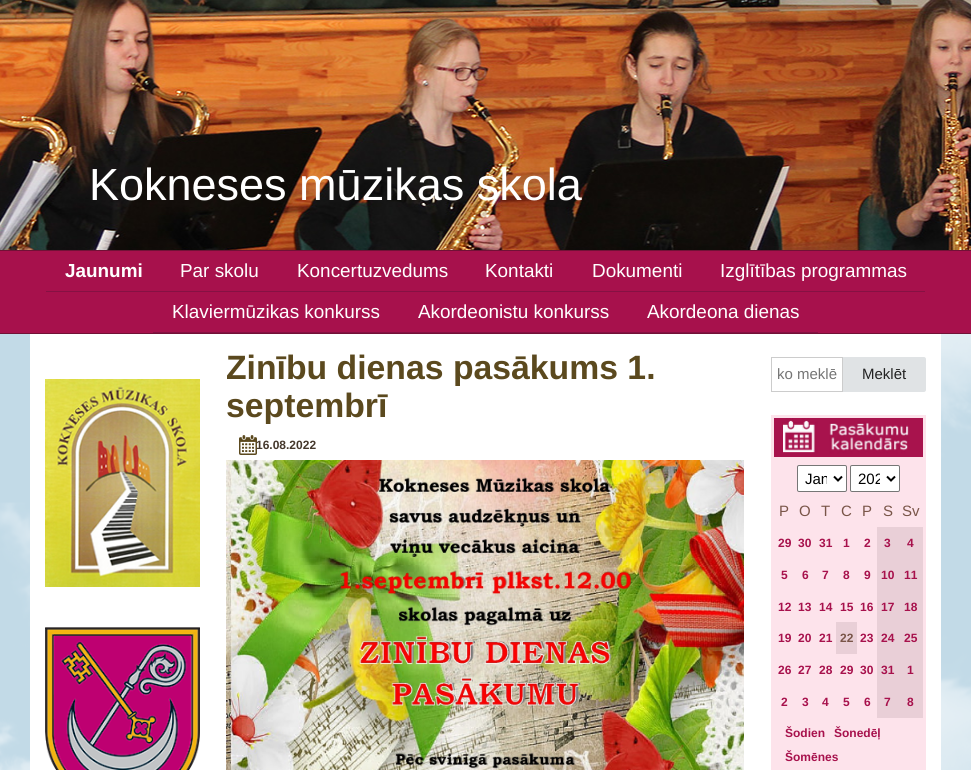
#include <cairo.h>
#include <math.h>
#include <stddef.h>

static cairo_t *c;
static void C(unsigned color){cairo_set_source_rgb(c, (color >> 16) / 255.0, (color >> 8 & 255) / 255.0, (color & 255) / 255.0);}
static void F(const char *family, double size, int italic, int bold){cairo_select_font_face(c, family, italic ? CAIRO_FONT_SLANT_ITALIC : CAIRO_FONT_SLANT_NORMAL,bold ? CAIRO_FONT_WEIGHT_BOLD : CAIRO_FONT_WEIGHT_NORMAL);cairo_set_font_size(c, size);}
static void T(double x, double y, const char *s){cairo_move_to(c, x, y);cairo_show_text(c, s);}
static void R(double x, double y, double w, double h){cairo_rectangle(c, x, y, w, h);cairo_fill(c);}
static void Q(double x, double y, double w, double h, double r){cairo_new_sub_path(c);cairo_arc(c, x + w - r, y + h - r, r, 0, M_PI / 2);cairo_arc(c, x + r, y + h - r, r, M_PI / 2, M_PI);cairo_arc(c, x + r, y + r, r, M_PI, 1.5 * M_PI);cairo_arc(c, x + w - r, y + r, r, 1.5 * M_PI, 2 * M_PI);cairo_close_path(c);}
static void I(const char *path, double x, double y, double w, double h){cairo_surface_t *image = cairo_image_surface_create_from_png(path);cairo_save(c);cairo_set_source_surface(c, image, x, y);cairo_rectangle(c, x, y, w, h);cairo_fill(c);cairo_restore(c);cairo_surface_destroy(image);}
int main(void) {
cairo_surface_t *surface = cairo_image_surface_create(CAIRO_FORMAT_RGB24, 971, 770);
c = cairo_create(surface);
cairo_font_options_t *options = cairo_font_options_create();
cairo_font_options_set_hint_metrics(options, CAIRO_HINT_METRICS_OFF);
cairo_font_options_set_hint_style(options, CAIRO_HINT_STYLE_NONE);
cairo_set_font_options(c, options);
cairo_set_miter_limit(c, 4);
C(0xc2dae7);
cairo_paint(c);
I("1.png",0,334,971,436);
I("2.png",0,0,971,250);
F("Liberation Sans",45,0,0);
C(0xffffff);
T(89,200,"Kokneses mūzikas skola");
C(0xa7114c);
R(0,251,971,82);
C(0x711136);
R(0,250,971,1);
R(0,333,971,1);
C(0x861143);
R(46,291,879,1);
F("Liberation Sans",18.9,0,1);
C(0xffffff);
T(65,277,"Jaunumi");
F("Liberation Sans",18.9,0,0);
T(180,277,"Par skolu");
T(297,277,"Koncertuzvedums");
T(485,277,"Kontakti");
T(592,277,"Dokumenti");
T(720,277,"Izglītības programmas");
C(0x861143);
R(153,332,665,1);
C(0xffffff);
T(172,318,"Klaviermūzikas konkurss");
T(418,318,"Akordeonistu konkurss");
T(647,318,"Akordeona dienas");
R(30,334,911,436);
I("3.png",45,379,155,208);
I("4.png",45,627,155,143);
F("Liberation Sans",33.75,0,1);
C(0x5b491e);
T(226,379,"Zinību dienas pasākums 1.");
T(226,417,"septembrī");
I("5.png",239,435,18,20);
F("Liberation Sans",12,0,1);
C(0x45382c);
T(256,449,"16.08.2022");
I("6.png",226,460,518,310);
cairo_rectangle(c,771.5,357.5,71,34);
C(0xcccccc);
cairo_set_line_width(c,1);
cairo_stroke(c);
F("Liberation Sans",15,0,0);
C(0x757575);
T(777,379,"ko meklē");
C(0xe0e3e5);
cairo_new_path(c);
cairo_move_to(c,843,357);
cairo_line_to(c,924,357);
cairo_curve_to(c,925,357,926,358,926,359);
cairo_line_to(c,926,390);
cairo_curve_to(c,926,391,925,392,924,392);
cairo_line_to(c,843,392);
cairo_close_path(c);
cairo_fill(c);
C(0x222222);
T(862,379,"Meklēt");
C(0xfde3eb);
R(771,415,155,355);
I("7.png",774,418,149,39);
C(0xffffff);
Q(797.5,465.5,49,26,1.5);
cairo_fill_preserve(c);
C(0x767676);
cairo_stroke(c);
cairo_new_path(c);
cairo_move_to(c,834,476.5);
cairo_line_to(c,838,480.5);
cairo_line_to(c,842,476.5);
C(0x000000);
cairo_set_line_width(c,2);
cairo_stroke(c);
cairo_save(c);
cairo_rectangle(c,805,469,22,19);
cairo_clip(c);
T(805,484,"Jan");
cairo_restore(c);
C(0xffffff);
Q(850.5,465.5,49,26,1.5);
cairo_fill_preserve(c);
C(0x767676);
cairo_set_line_width(c,1);
cairo_stroke(c);
cairo_new_path(c);
cairo_move_to(c,887,476.5);
cairo_line_to(c,891,480.5);
cairo_line_to(c,895,476.5);
C(0x000000);
cairo_set_line_width(c,2);
cairo_stroke(c);
cairo_save(c);
cairo_rectangle(c,858,469,22,19);
cairo_clip(c);
T(858,484,"202");
cairo_restore(c);
C(0x795548);
T(779,516,"P");
T(799,516,"O");
T(821,516,"T");
T(841,516,"C");
T(862,516,"P");
T(883,516,"S");
T(902,516,"Sv");
F("Liberation Sans",12,0,1);
C(0xa7114c);
T(778,547,"29");
T(798,547,"30");
T(819,547,"31");
T(843,547,"1");
T(864,547,"2");
C(0xe9cfd7);
R(877,527,46,32);
C(0xa7114c);
T(884,547,"3");
T(907,547,"4");
T(781,579,"5");
T(802,579,"6");
T(822,579,"7");
T(843,579,"8");
T(864,579,"9");
C(0xe9cfd7);
R(877,559,46,32);
C(0xa7114c);
T(881,579,"10");
T(904,579,"11");
T(778,611,"12");
T(798,611,"13");
T(819,611,"14");
T(840,611,"15");
T(860,611,"16");
C(0xe9cfd7);
R(877,591,46,31);
C(0xa7114c);
T(881,611,"17");
T(904,611,"18");
T(778,642,"19");
T(798,642,"20");
T(819,642,"21");
C(0xe9cfd7);
R(836,622,21,32);
C(0x795548);
T(840,642,"22");
C(0xa7114c);
T(860,642,"23");
C(0xe9cfd7);
R(877,622,46,32);
C(0xa7114c);
T(881,642,"24");
T(904,642,"25");
T(778,674,"26");
T(798,674,"27");
T(819,674,"28");
T(840,674,"29");
T(860,674,"30");
C(0xe9cfd7);
R(877,654,46,32);
C(0xa7114c);
T(881,674,"31");
T(907,674,"1");
T(781,706,"2");
T(802,706,"3");
T(822,706,"4");
T(843,706,"5");
T(864,706,"6");
C(0xe9cfd7);
R(877,686,46,32);
C(0xa7114c);
T(884,706,"7");
T(907,706,"8");
T(785,737,"Šodien");
T(834,737,"Šonedēļ");
T(785,761,"Šomēnes");
cairo_surface_write_to_png(surface, "o.png");
cairo_font_options_destroy(options);
cairo_destroy(c);
cairo_surface_destroy(surface);
return 0;
}
